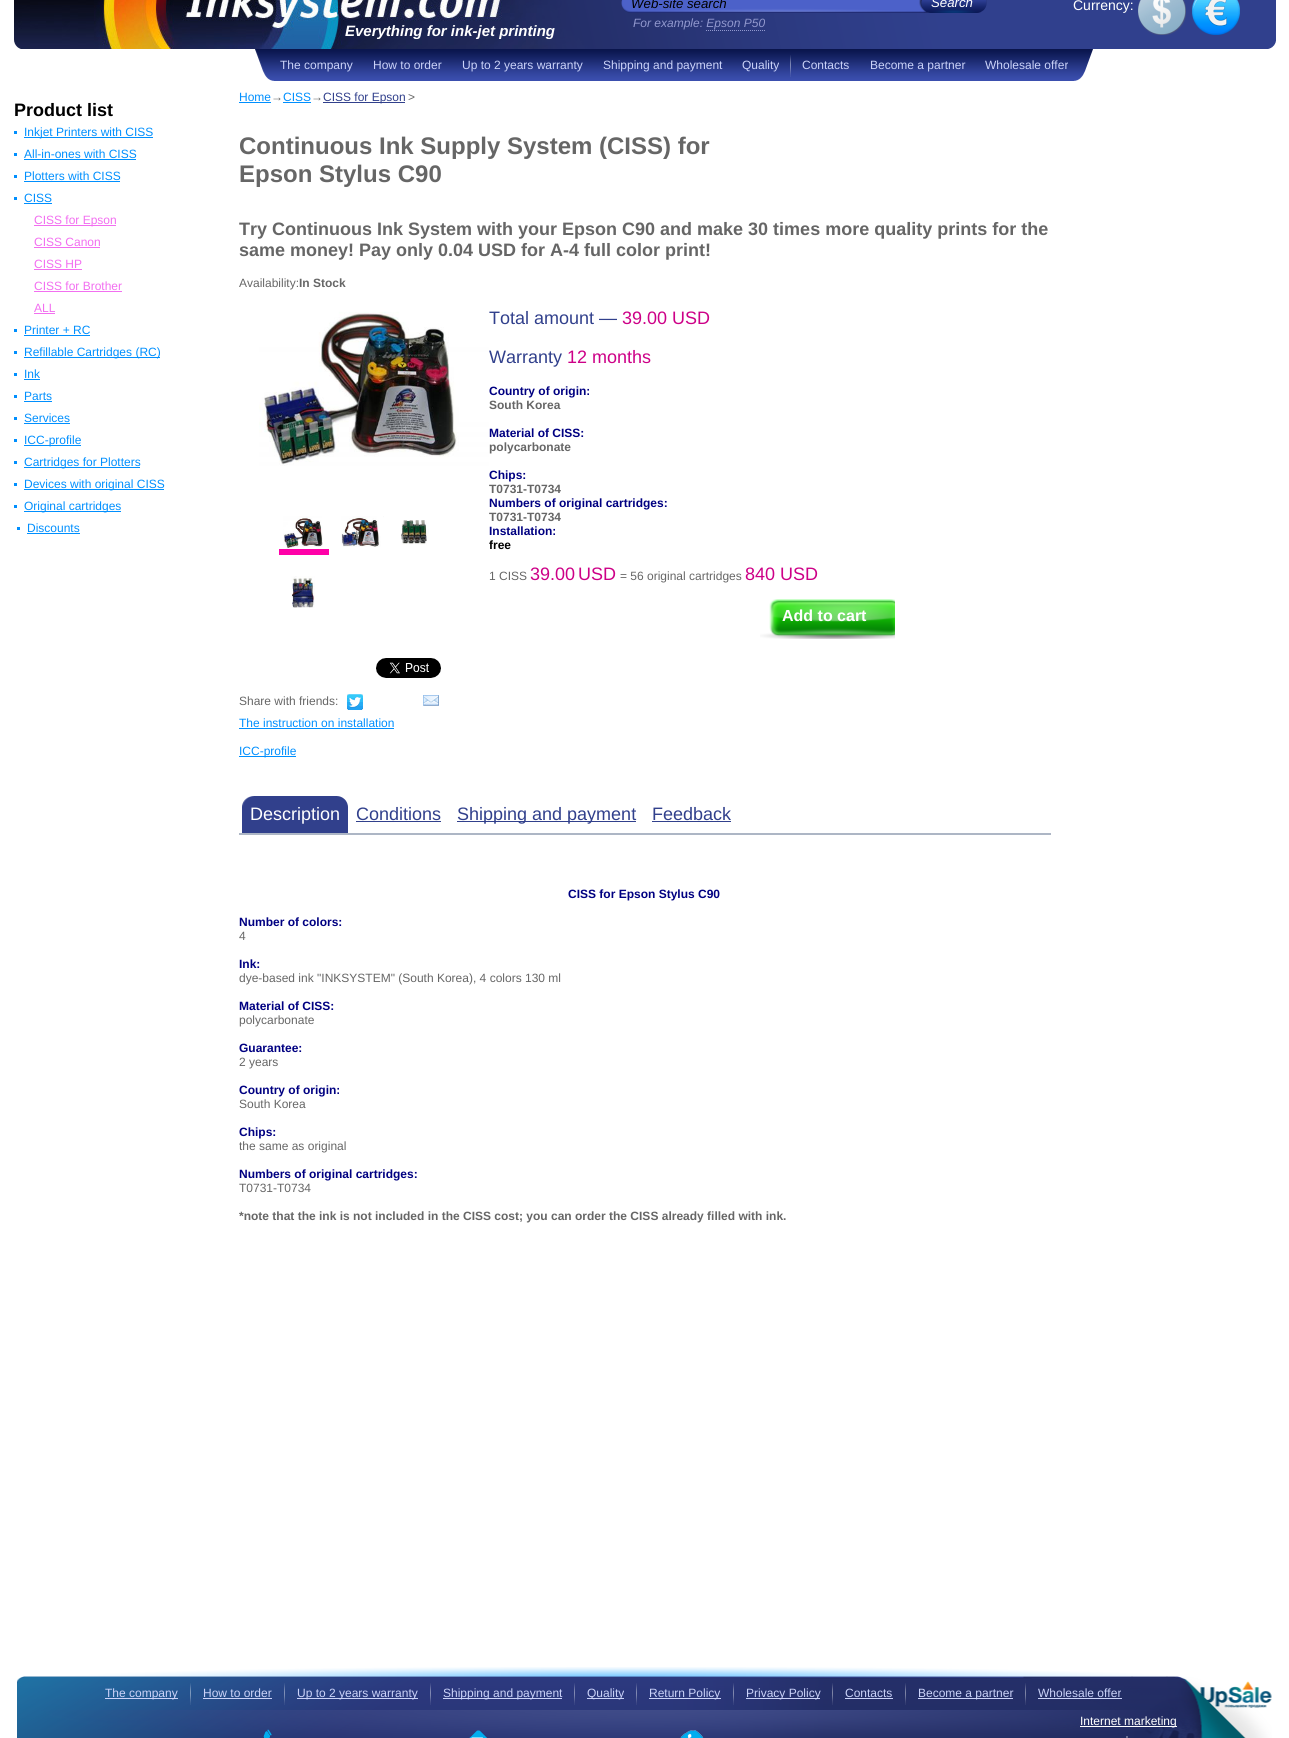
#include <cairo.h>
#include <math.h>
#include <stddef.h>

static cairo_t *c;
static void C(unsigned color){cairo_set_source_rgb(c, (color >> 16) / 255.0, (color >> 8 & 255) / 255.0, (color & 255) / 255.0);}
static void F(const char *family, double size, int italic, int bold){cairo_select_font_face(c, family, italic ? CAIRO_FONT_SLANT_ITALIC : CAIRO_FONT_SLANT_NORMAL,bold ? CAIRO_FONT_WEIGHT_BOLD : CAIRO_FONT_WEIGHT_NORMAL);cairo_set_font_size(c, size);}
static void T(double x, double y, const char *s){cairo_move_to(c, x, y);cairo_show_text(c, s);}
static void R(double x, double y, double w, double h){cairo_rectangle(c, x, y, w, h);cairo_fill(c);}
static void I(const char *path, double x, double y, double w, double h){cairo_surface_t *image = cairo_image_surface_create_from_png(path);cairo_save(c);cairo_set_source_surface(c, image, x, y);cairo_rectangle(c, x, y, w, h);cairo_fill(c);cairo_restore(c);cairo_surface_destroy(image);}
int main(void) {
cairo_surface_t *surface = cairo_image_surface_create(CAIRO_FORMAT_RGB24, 1289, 1738);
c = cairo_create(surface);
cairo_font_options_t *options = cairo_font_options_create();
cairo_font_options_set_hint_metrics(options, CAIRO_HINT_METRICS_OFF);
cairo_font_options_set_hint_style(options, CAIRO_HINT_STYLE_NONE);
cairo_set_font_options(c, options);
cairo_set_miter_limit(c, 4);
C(0xffffff);
cairo_paint(c);
I("1.png",14,0,1262,49);
I("2.png",621,0,307,13);
F("Liberation Sans",13.25,1,0);
C(0x000000);
T(631,8,"Web-site search");
I("3.png",919,0,68,13);
C(0xffffff);
T(931,7,"Search");
F("Liberation Sans",12,1,0);
C(0x9198ce);
T(633,27,"For example: Epson P50");
cairo_new_path(c);
cairo_move_to(c,706,30.5);
cairo_line_to(c,765,30.5);
cairo_set_line_width(c,1);
cairo_set_dash(c,(double[]){1,1},2,0);
cairo_stroke(c);
F("Liberation Sans",14,0,0);
C(0xffffff);
T(1073,10,"Currency:");
I("4.png",1138,0,48,35);
I("5.png",1192,0,48,35);
cairo_save(c);
cairo_rectangle(c,14,0,1262,39);
cairo_clip(c);
F("Liberation Sans",15,1,1);
T(345,36,"Everything for ink-jet printing");
cairo_restore(c);
I("6.png",255,49,108,32);
F("Liberation Sans",12,0,0);
C(0xcbd3f9);
T(280,69,"The company");
I("7.png",363,49,89,32);
T(373,69,"How to order");
I("8.png",452,49,141,32);
T(462,69,"Up to 2 years warranty");
I("9.png",593,49,139,32);
T(603,69,"Shipping and payment");
I("10.png",732,49,57,32);
T(742,69,"Quality");
I("11.png",789,49,3,32);
I("12.png",790,55,1,22);
I("13.png",792,49,68,32);
T(802,69,"Contacts");
I("14.png",860,49,115,32);
T(870,69,"Become a partner");
I("15.png",975,49,118,32);
T(985,69,"Wholesale offer");
F("Liberation Sans",18,0,1);
C(0x000000);
T(14,116,"Product list");
C(0x008ffe);
R(24,137,129,1);
F("Liberation Sans",12,0,0);
T(24,136,"Inkjet Printers with CISS");
R(14,131,3,3);
T(24,158,"All-in-ones with CISS");
R(14,153,3,3);
R(24,159,112,1);
T(24,180,"Plotters with CISS");
R(14,175,3,3);
R(24,181,96,1);
T(24,202,"CISS");
R(14,197,3,3);
R(24,203,28,1);
C(0xf26ff0);
R(34,225,82,1);
T(34,224,"CISS for Epson");
T(34,246,"CISS Canon");
R(34,247,66,1);
T(34,268,"CISS HP");
R(34,269,48,1);
T(34,290,"CISS for Brother");
R(34,291,88,1);
T(34,312,"ALL");
R(34,313,21,1);
C(0x008ffe);
T(24,334,"Printer + RC");
R(14,329,3,3);
R(24,335,66,1);
R(24,357,136,1);
T(24,356,"Refillable Cartridges (RC)");
R(14,351,3,3);
T(24,378,"Ink");
R(14,373,3,3);
R(24,379,16,1);
T(24,400,"Parts");
R(14,395,3,3);
R(24,401,28,1);
T(24,422,"Services");
R(14,417,3,3);
R(24,423,46,1);
R(24,445,57,1);
T(24,444,"ICC-profile");
R(14,439,3,3);
R(24,467,116,1);
T(24,466,"Cartridges for Plotters");
R(14,461,3,3);
R(24,489,140,1);
T(24,488,"Devices with original CISS");
R(14,483,3,3);
R(24,511,97,1);
T(24,510,"Original cartridges");
R(14,505,3,3);
T(27,532,"Discounts");
R(17,527,3,3);
R(27,533,53,1);
T(239,101,"Home");
F("Liberation Sans",12,1,0);
C(0x666666);
T(271,101,"→");
C(0x008ffe);
R(239,102,32,1);
F("Liberation Sans",12,0,0);
T(283,101,"CISS");
F("Liberation Sans",12,1,0);
C(0x666666);
T(311,101,"→");
C(0x008ffe);
R(283,102,28,1);
C(0x31408c);
R(323,102,82,1);
F("Liberation Sans",12,0,0);
T(323,101,"CISS for Epson");
C(0x666666);
T(408,101,">");
F("Liberation Sans",24,0,1);
T(239,154,"Continuous Ink Supply System (CISS) for");
T(239,182,"Epson Stylus C90");
F("Liberation Sans",18,0,1);
T(239,235,"Try Continuous Ink System with your Epson C90 and make 30 times more quality prints for the");
T(239,256,"same money! Pay only 0.04 USD for A-4 full color print!");
F("Liberation Sans",12,0,0);
T(239,287,"Availability:");
F("Liberation Sans",12,0,1);
T(299,287,"In Stock");
F("Liberation Sans",18,0,0);
C(0x31408c);
T(489,324,"Total amount —");
C(0xcd0087);
T(622,324,"39.00 USD");
C(0x31408c);
T(489,363,"Warranty");
C(0xcd0087);
T(567,363,"12 months");
F("Liberation Sans",12,0,1);
C(0x000081);
T(489,395,"Country of origin:");
C(0x666666);
T(489,409,"South Korea");
C(0x000081);
T(489,437,"Material of CISS:");
C(0x666666);
T(489,451,"polycarbonate");
C(0x000081);
T(489,479,"Chips:");
C(0x666666);
T(489,493,"T0731-T0734");
C(0x000081);
T(489,507,"Numbers of original cartridges:");
C(0x666666);
T(489,521,"T0731-T0734");
C(0x000081);
T(489,535,"Installation:");
C(0x000000);
T(489,549,"free");
F("Liberation Sans",12,0,0);
C(0x666666);
T(489,580,"1 CISS");
F("Liberation Sans",18,0,0);
C(0xcd0087);
T(530,580,"39.00");
T(578,580,"USD");
F("Liberation Sans",12,0,0);
C(0x666666);
T(620,580,"= 56 original cartridges");
F("Liberation Sans",18,0,0);
C(0xcd0087);
T(745,580,"840 USD");
I("16.png",760,599,135,40);
F("Liberation Sans",16,0,1);
C(0xffffff);
T(782,621,"Add to cart");
I("17.png",259,311,230,155);
C(0xff00a8);
R(279,549,50,6);
I("18.png",283,516,40,33);
I("19.png",341,516,43,31);
I("20.png",401,520,28,25);
I("21.png",291,576,24,32);
I("22.png",376,658,65,20);
F("Liberation Sans",12,0,0);
C(0x666666);
T(239,705,"Share with friends:");
I("23.png",347,694,16,16);
I("24.png",423,695,16,11);
C(0x008ffe);
T(239,727,"The instruction on installation");
R(239,728,155,1);
R(239,756,57,1);
T(239,755,"ICC-profile");
C(0xadb6c5);
R(239,833,812,2);
C(0x31408c);
R(242,796,106,37);
I("25.png",242,796,12,11);
I("26.png",337,796,11,11);
F("Liberation Sans",18,0,0);
C(0xffffff);
T(250,820,"Description");
C(0x31408c);
T(356,820,"Conditions");
R(356,821,85,1);
R(457,821,179,1);
T(457,820,"Shipping and payment");
T(652,820,"Feedback");
R(652,821,79,1);
F("Liberation Sans",12,0,1);
C(0x000081);
T(568,898,"CISS for Epson Stylus C90");
T(239,926,"Number of colors:");
F("Liberation Sans",12,0,0);
C(0x666666);
T(239,940,"4");
F("Liberation Sans",12,0,1);
C(0x000081);
T(239,968,"Ink:");
F("Liberation Sans",12,0,0);
C(0x666666);
T(239,982,"dye-based ink \"INKSYSTEM\" (South Korea), 4 colors 130 ml");
F("Liberation Sans",12,0,1);
C(0x000081);
T(239,1010,"Material of CISS:");
F("Liberation Sans",12,0,0);
C(0x666666);
T(239,1024,"polycarbonate");
F("Liberation Sans",12,0,1);
C(0x000081);
T(239,1052,"Guarantee:");
F("Liberation Sans",12,0,0);
C(0x666666);
T(239,1066,"2 years");
F("Liberation Sans",12,0,1);
C(0x000081);
T(239,1094,"Country of origin:");
F("Liberation Sans",12,0,0);
C(0x666666);
T(239,1108,"South Korea");
F("Liberation Sans",12,0,1);
C(0x000081);
T(239,1136,"Chips:");
F("Liberation Sans",12,0,0);
C(0x666666);
T(239,1150,"the same as original");
F("Liberation Sans",12,0,1);
C(0x000081);
T(239,1178,"Numbers of original cartridges:");
F("Liberation Sans",12,0,0);
C(0x666666);
T(239,1192,"T0731-T0734");
F("Liberation Sans",12,0,1);
T(239,1220,"*note that the ink is not included in the CISS cost; you can order the CISS already filled with ink.");
I("27.png",17,1667,1255,71);
C(0xcbd3f9);
R(105,1698,73,1);
F("Liberation Sans",12,0,0);
T(105,1697,"The company");
I("28.png",190,1683,1,22);
T(203,1697,"How to order");
R(203,1698,69,1);
I("29.png",284,1683,1,22);
R(297,1698,121,1);
T(297,1697,"Up to 2 years warranty");
I("30.png",430,1683,1,22);
R(443,1698,119,1);
T(443,1697,"Shipping and payment");
I("30.png",574,1683,1,22);
R(587,1698,37,1);
T(587,1697,"Quality");
I("30.png",636,1683,1,22);
R(649,1698,72,1);
T(649,1697,"Return Policy");
I("31.png",733,1683,1,22);
R(746,1698,74,1);
T(746,1697,"Privacy Policy");
I("32.png",832,1683,1,22);
T(845,1697,"Contacts");
R(845,1698,48,1);
I("32.png",905,1683,1,22);
R(918,1698,95,1);
T(918,1697,"Become a partner");
I("32.png",1025,1683,1,22);
T(1038,1697,"Wholesale offer");
R(1038,1698,84,1);
C(0xffffff);
R(1080,1726,97,1);
T(1080,1725,"Internet marketing");
I("33.png",263,1729,9,9);
I("34.png",469,1730,18,8);
I("35.png",680,1730,24,8);
cairo_surface_write_to_png(surface, "o.png");
cairo_font_options_destroy(options);
cairo_destroy(c);
cairo_surface_destroy(surface);
return 0;
}
